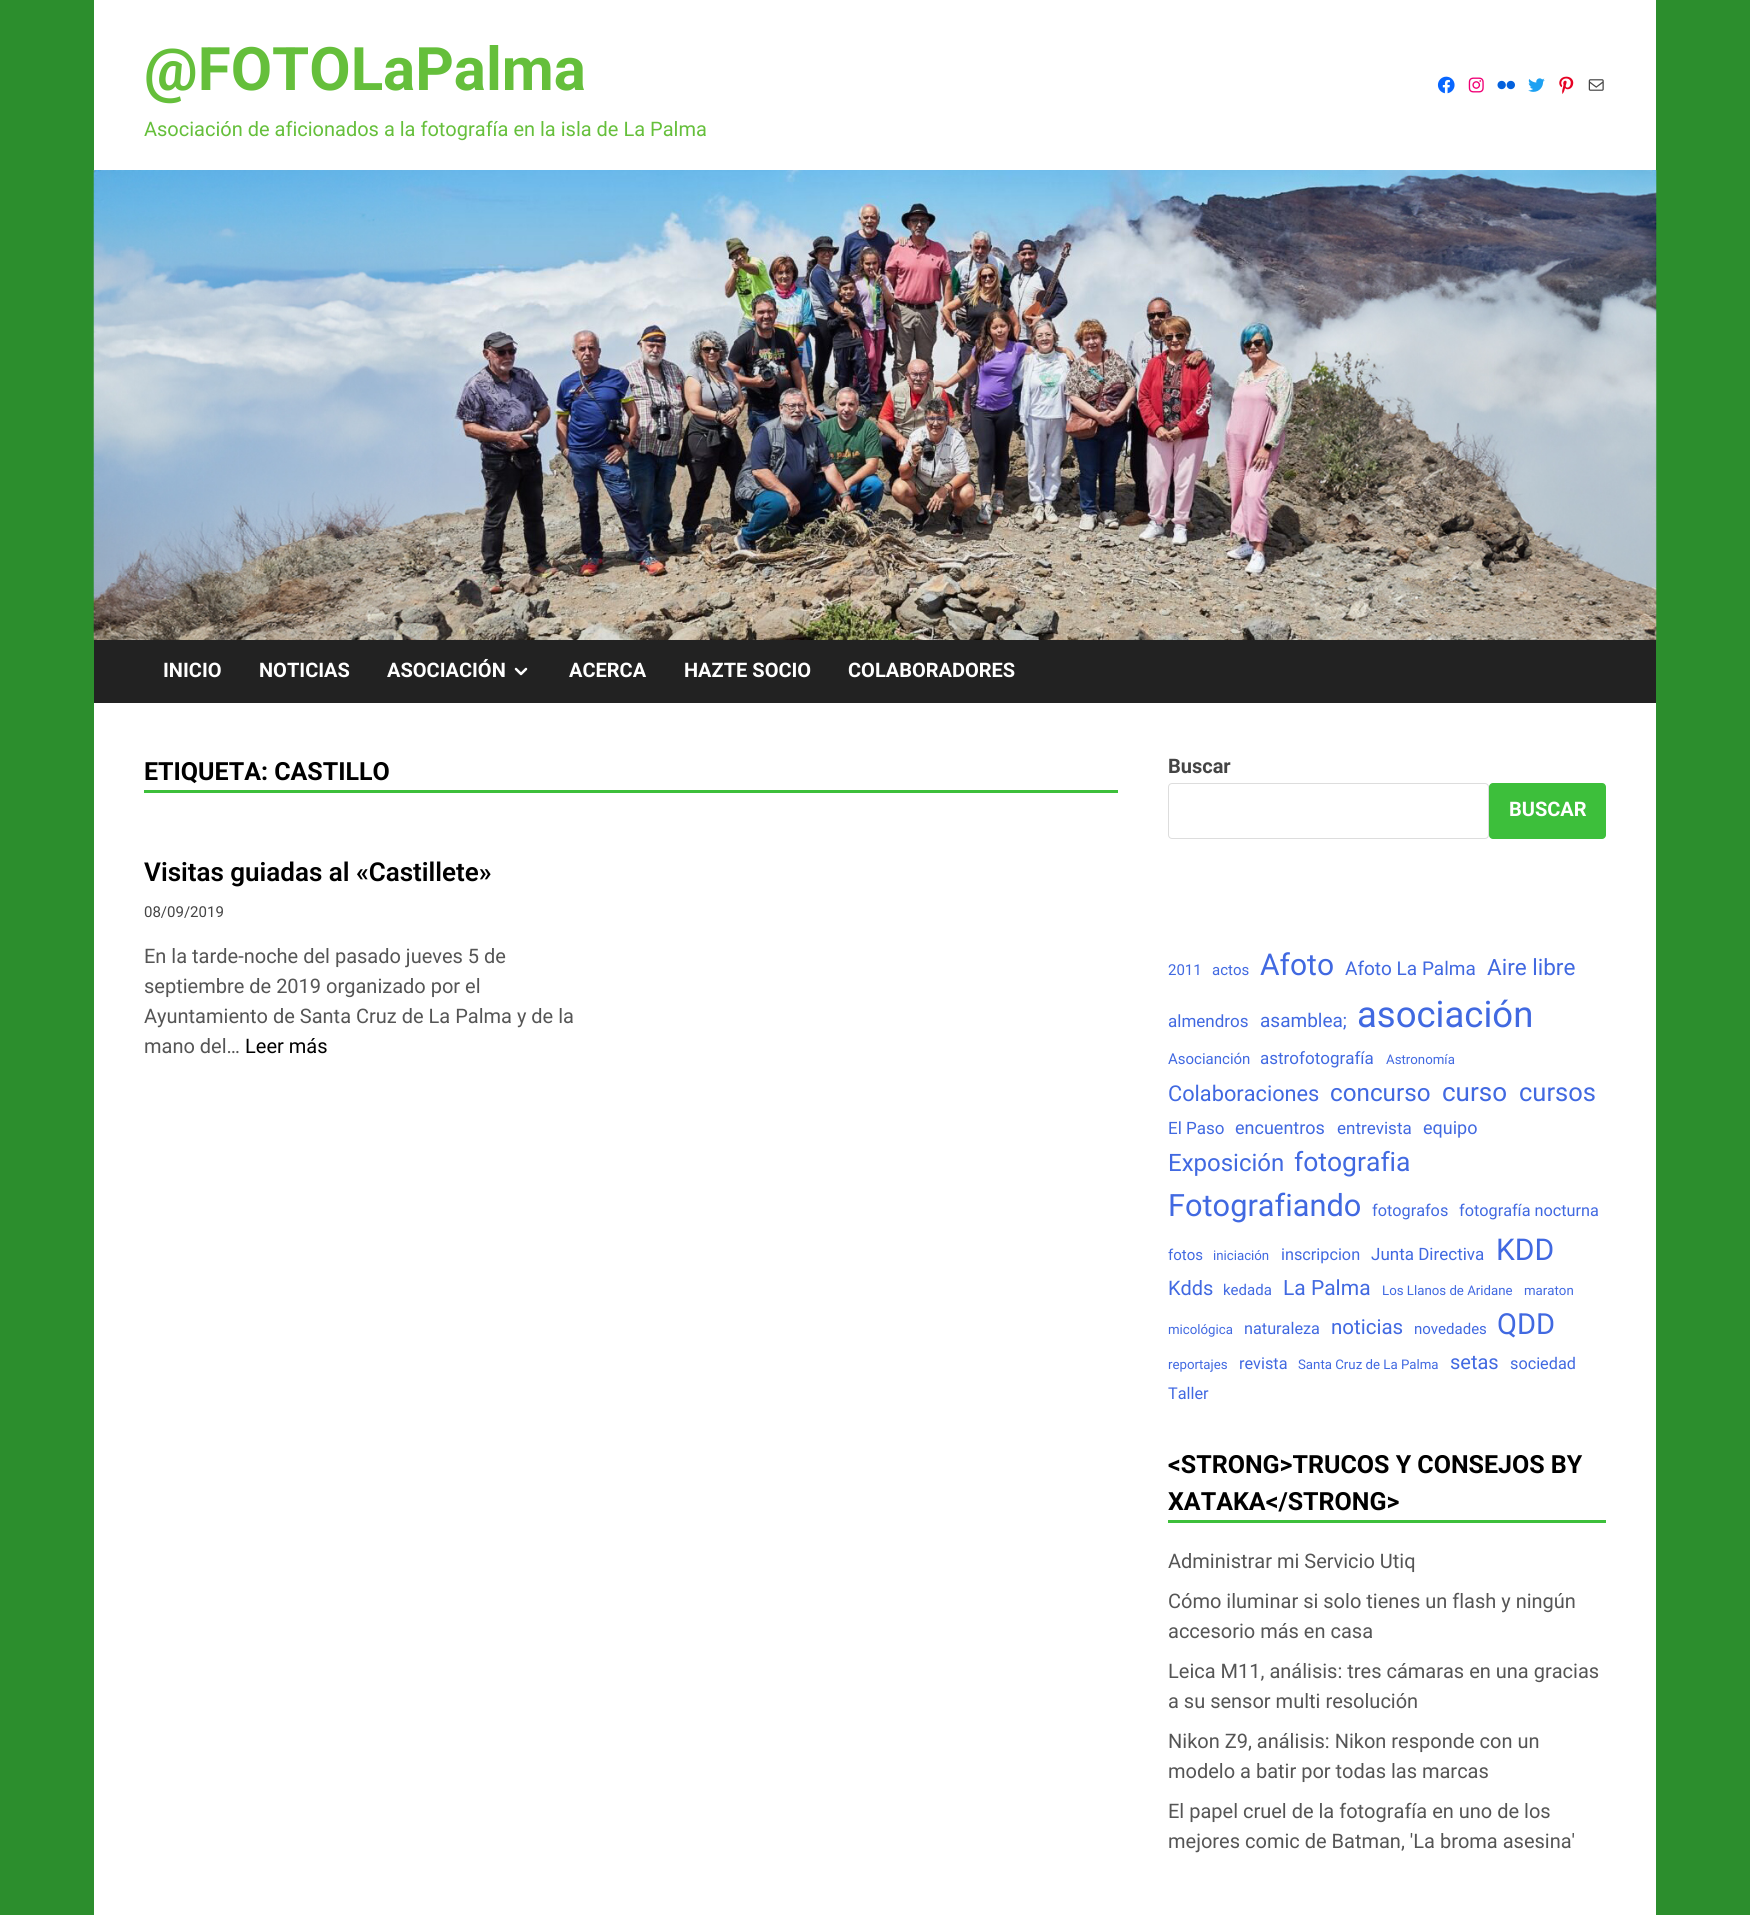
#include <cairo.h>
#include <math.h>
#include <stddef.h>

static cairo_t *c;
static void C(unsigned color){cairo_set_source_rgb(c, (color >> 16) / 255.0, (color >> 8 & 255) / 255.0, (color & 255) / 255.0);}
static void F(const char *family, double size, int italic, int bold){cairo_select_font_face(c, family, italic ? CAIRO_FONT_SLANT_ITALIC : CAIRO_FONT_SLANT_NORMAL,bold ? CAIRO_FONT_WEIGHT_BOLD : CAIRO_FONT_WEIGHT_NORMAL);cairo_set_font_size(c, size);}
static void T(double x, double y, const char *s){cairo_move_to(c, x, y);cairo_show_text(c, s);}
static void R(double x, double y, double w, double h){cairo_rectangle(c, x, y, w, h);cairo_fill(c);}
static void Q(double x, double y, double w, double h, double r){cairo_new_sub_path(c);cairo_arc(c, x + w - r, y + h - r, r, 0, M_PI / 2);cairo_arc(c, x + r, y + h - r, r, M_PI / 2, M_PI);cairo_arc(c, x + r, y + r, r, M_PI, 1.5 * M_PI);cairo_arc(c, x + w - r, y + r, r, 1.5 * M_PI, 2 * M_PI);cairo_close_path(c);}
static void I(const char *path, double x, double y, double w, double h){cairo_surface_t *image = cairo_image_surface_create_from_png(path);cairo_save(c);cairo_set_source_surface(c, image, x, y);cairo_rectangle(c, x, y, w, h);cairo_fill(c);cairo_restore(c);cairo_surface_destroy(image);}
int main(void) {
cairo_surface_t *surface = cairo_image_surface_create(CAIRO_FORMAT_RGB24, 1750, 1915);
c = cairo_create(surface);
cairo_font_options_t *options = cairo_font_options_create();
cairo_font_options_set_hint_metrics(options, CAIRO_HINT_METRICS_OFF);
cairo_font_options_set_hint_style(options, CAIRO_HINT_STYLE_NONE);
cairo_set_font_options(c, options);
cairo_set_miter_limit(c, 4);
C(0x2c8e2d);
cairo_paint(c);
C(0xffffff);
R(94,0,1562,1915);
F("Roboto",60,0,1);
C(0x65bf3b);
T(144,90,"@FOTOLaPalma");
F("Roboto",20,0,0);
T(144,136,"Asociación de aficionados a la fotografía en la isla de La Palma");
I("1.png",1437,76,18,18);
I("2.png",1468,77,16,16);
I("3.png",1497,80,18,10);
I("4.png",1528,78,17,14);
I("5.png",1559,76,15,18);
I("6.png",1588,79,16,12);
I("7.png",93,170,1564,470);
C(0x222222);
R(94,640,1562,63);
F("Roboto",20,0,1);
C(0xffffff);
T(163,677,"INICIO");
T(259,677,"NOTICIAS");
T(387,677,"ASOCIACIÓN");
cairo_new_path(c);
cairo_move_to(c,516,669);
cairo_line_to(c,521,674);
cairo_line_to(c,526,669);
cairo_set_line_width(c,2.5);
cairo_set_line_cap(c,CAIRO_LINE_CAP_ROUND);
cairo_set_line_join(c,CAIRO_LINE_JOIN_ROUND);
cairo_stroke(c);
T(569,677,"ACERCA");
T(684,677,"HAZTE SOCIO");
T(848,677,"COLABORADORES");
C(0x3dbf3b);
R(144,790,974,3);
F("Roboto",25,0,1);
C(0x000000);
T(144,780,"ETIQUETA: CASTILLO");
F("Roboto SemiBold",26,0,0);
T(144,881,"Visitas guiadas al «Castillete»");
F("Roboto",15,0,0);
C(0x444444);
T(144,917,"08/09/2019");
F("Roboto",20,0,0);
C(0x555555);
T(144,963,"En la tarde-noche del pasado jueves 5 de");
T(144,993,"septiembre de 2019 organizado por el");
T(144,1023,"Ayuntamiento de Santa Cruz de La Palma y de la");
T(144,1053,"mano del…");
C(0x000000);
T(245,1053,"Leer más");
F("Roboto",20,0,1);
C(0x444444);
T(1168,773,"Buscar");
Q(1168.5,783.5,320,55,3.5);
C(0xdddddd);
cairo_set_line_width(c,1);
cairo_set_line_cap(c,CAIRO_LINE_CAP_BUTT);
cairo_set_line_join(c,CAIRO_LINE_JOIN_MITER);
cairo_stroke(c);
C(0x3dbf3b);
Q(1489,783,117,56,4);
cairo_fill(c);
C(0xffffff);
T(1509,816,"BUSCAR");
F("Roboto",15,0,0);
C(0x4169e1);
T(1168,975,"2011");
T(1212,975,"actos");
F("Roboto",30,0,0);
T(1260,975,"Afoto");
F("Roboto",19,0,0);
T(1345,975,"Afoto La Palma");
F("Roboto",22.5,0,0);
T(1487,975,"Aire libre");
F("Roboto",17,0,0);
T(1168,1027,"almendros");
F("Roboto",19,0,0);
T(1260,1027,"asamblea;");
F("Roboto",36.5,0,0);
T(1357,1027,"asociación");
F("Roboto",15,0,0);
T(1168,1064,"Asocianción");
F("Roboto",17,0,0);
T(1260,1064,"astrofotografía");
F("Roboto",13.25,0,0);
T(1386,1064,"Astronomía");
F("Roboto",21.75,0,0);
T(1168,1101,"Colaboraciones");
F("Roboto",24.25,0,0);
T(1330,1101,"concurso");
F("Roboto",26,0,0);
T(1442,1101,"curso");
F("Roboto",25.5,0,0);
T(1519,1101,"cursos");
F("Roboto",17,0,0);
T(1168,1134,"El Paso");
F("Roboto",18,0,0);
T(1235,1134,"encuentros");
F("Roboto",17,0,0);
T(1337,1134,"entrevista");
F("Roboto",18,0,0);
T(1423,1134,"equipo");
F("Roboto",24,0,0);
T(1168,1171,"Exposición");
F("Roboto",26.5,0,0);
T(1294,1171,"fotografia");
F("Roboto",30.75,0,0);
T(1168,1216,"Fotografiando");
F("Roboto",16.25,0,0);
T(1372,1216,"fotografos");
T(1459,1216,"fotografía nocturna");
F("Roboto",15,0,0);
T(1168,1260,"fotos");
F("Roboto",13.25,0,0);
T(1213,1260,"iniciación");
F("Roboto",16.25,0,0);
T(1281,1260,"inscripcion");
F("Roboto",17,0,0);
T(1371,1260,"Junta Directiva");
F("Roboto",30,0,0);
T(1496,1260,"KDD");
F("Roboto",20,0,0);
T(1168,1295,"Kdds");
F("Roboto",15,0,0);
T(1223,1295,"kedada");
F("Roboto",21,0,0);
T(1283,1295,"La Palma");
F("Roboto",13.25,0,0);
T(1382,1295,"Los Llanos de Aridane");
T(1524,1295,"maraton");
T(1168,1334,"micológica");
F("Roboto",16.25,0,0);
T(1244,1334,"naturaleza");
F("Roboto",20.5,0,0);
T(1331,1334,"noticias");
F("Roboto",15,0,0);
T(1414,1334,"novedades");
F("Roboto",29,0,0);
T(1497,1334,"QDD");
F("Roboto",13.25,0,0);
T(1168,1369,"reportajes");
F("Roboto",16.25,0,0);
T(1239,1369,"revista");
F("Roboto",13.25,0,0);
T(1298,1369,"Santa Cruz de La Palma");
F("Roboto",20,0,0);
T(1450,1369,"setas");
F("Roboto",16.25,0,0);
T(1510,1369,"sociedad");
T(1168,1399,"Taller");
C(0x3dbf3b);
R(1168,1520,438,3);
F("Roboto",25,0,1);
C(0x000000);
T(1168,1473,"<STRONG>TRUCOS Y CONSEJOS BY");
T(1168,1510,"XATAKA</STRONG>");
F("Roboto",20,0,0);
C(0x555555);
T(1168,1568,"Administrar mi Servicio Utiq");
T(1168,1608,"Cómo iluminar si solo tienes un flash y ningún");
T(1168,1638,"accesorio más en casa");
T(1168,1678,"Leica M11, análisis: tres cámaras en una gracias");
T(1168,1708,"a su sensor multi resolución");
T(1168,1748,"Nikon Z9, análisis: Nikon responde con un");
T(1168,1778,"modelo a batir por todas las marcas");
T(1168,1818,"El papel cruel de la fotografía en uno de los");
T(1168,1848,"mejores comic de Batman, 'La broma asesina'");
cairo_surface_write_to_png(surface, "o.png");
cairo_font_options_destroy(options);
cairo_destroy(c);
cairo_surface_destroy(surface);
return 0;
}
